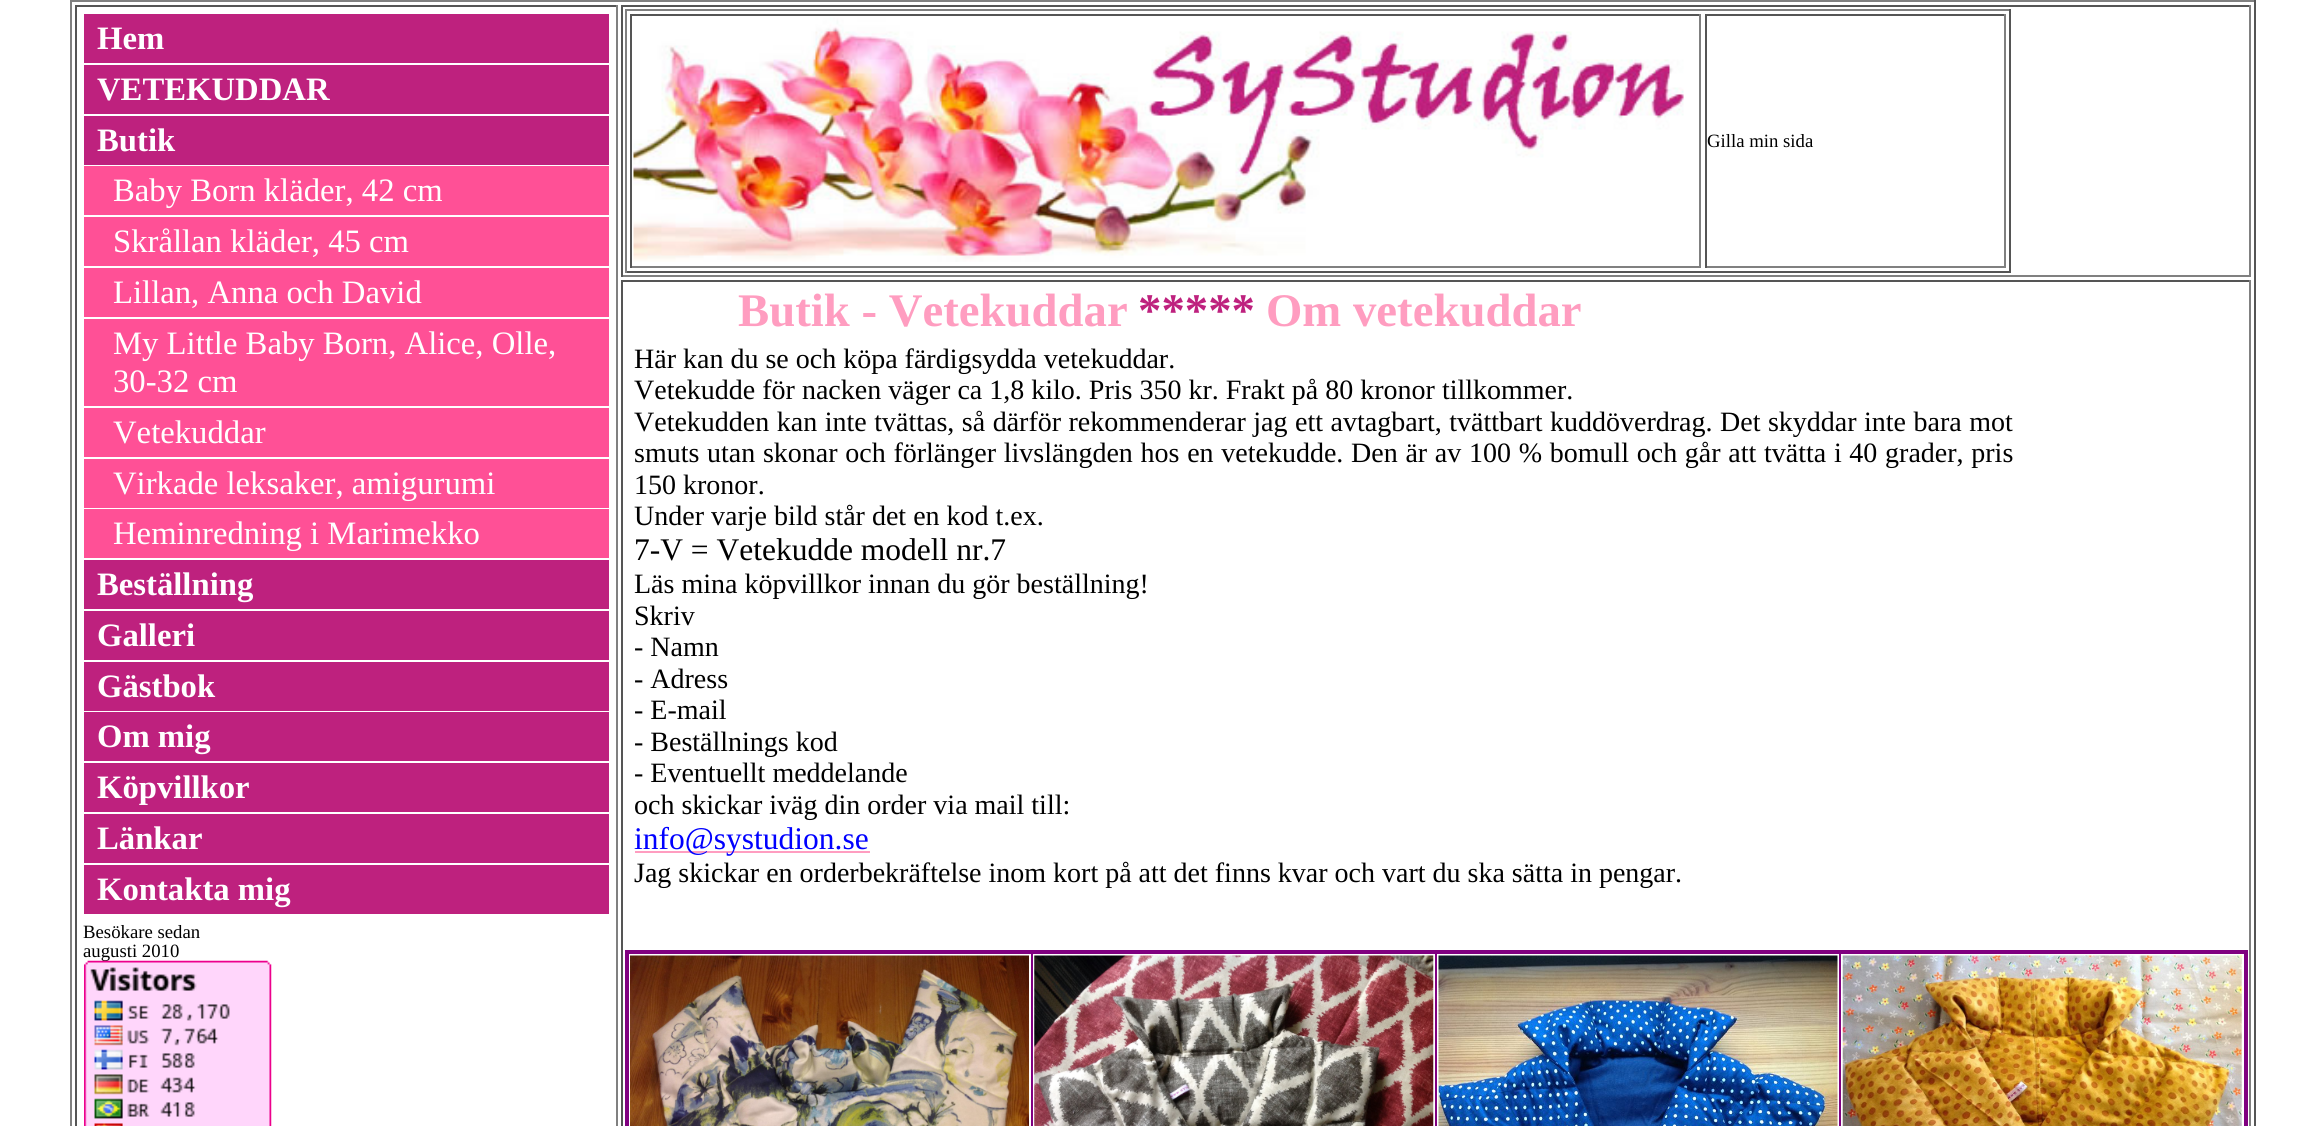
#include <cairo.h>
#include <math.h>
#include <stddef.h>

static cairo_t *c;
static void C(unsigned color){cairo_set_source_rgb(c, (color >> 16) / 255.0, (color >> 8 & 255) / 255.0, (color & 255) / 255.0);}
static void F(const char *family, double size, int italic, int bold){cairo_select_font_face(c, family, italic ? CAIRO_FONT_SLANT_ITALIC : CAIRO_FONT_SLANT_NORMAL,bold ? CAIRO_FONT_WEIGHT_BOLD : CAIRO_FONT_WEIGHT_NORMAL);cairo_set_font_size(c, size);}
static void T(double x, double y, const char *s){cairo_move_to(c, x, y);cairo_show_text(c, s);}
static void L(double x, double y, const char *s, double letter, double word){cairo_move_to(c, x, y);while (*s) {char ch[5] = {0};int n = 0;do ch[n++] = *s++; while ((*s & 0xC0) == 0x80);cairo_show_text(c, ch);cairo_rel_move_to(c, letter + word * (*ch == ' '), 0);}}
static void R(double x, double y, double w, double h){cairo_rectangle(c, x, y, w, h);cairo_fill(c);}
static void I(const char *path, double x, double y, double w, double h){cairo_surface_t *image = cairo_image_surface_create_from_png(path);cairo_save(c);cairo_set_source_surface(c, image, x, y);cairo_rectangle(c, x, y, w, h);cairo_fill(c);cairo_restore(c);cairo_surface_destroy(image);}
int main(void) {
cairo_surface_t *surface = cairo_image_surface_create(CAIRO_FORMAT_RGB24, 2323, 1126);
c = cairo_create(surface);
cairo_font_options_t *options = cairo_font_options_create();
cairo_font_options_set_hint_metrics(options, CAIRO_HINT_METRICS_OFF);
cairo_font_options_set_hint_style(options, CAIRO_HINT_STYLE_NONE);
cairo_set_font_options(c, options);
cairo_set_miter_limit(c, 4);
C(0xffffff);
cairo_paint(c);
C(0x808080);
R(70,0,2186,2);
C(0x555555);
R(2254,0,2,1126);
C(0x808080);
R(70,0,2,1126);
C(0x555555);
R(75,5,543,2);
C(0x808080);
R(616,5,2,1121);
C(0x555555);
R(75,5,2,1121);
C(0xbe217e);
R(84,14,525,49);
F("Liberation Serif",32.7,0,1);
C(0xffffff);
T(97,49,"Hem");
C(0xbe217e);
R(84,65,525,49);
C(0xffffff);
T(97,100,"VETEKUDDAR");
C(0xbe217e);
R(84,116,525,49);
C(0xffffff);
T(97,151,"Butik");
C(0xff5096);
R(84,166,525,49);
F("Liberation Serif",32.7,0,0);
C(0xffffff);
T(113,201,"Baby Born kläder, 42 cm");
C(0xff5096);
R(84,217,525,49);
C(0xffffff);
T(113,252,"Skrållan kläder, 45 cm");
C(0xff5096);
R(84,268,525,49);
C(0xffffff);
T(113,303,"Lillan, Anna och David");
C(0xff5096);
R(84,319,525,87);
C(0xffffff);
T(113,354,"My Little Baby Born, Alice, Olle,");
T(113,392,"30-32 cm");
C(0xff5096);
R(84,408,525,49);
C(0xffffff);
T(113,443,"Vetekuddar");
C(0xff5096);
R(84,459,525,49);
C(0xffffff);
T(113,494,"Virkade leksaker, amigurumi");
C(0xff5096);
R(84,509,525,49);
C(0xffffff);
T(113,544,"Heminredning i Marimekko");
C(0xbe217e);
R(84,560,525,49);
F("Liberation Serif",32.7,0,1);
C(0xffffff);
T(97,595,"Beställning");
C(0xbe217e);
R(84,611,525,49);
C(0xffffff);
T(97,646,"Galleri");
C(0xbe217e);
R(84,662,525,49);
C(0xffffff);
T(97,697,"Gästbok");
C(0xbe217e);
R(84,712,525,49);
C(0xffffff);
T(97,747,"Om mig");
C(0xbe217e);
R(84,763,525,49);
C(0xffffff);
T(97,798,"Köpvillkor");
C(0xbe217e);
R(84,814,525,49);
C(0xffffff);
T(97,849,"Länkar");
C(0xbe217e);
R(84,865,525,49);
C(0xffffff);
T(97,900,"Kontakta mig");
F("Liberation Serif",18.75,0,0);
C(0x000000);
T(83,938,"Besökare sedan");
T(83,957,"augusti 2010");
I("1.png",84,960,188,166);
C(0x555555);
R(621,5,1630,2);
C(0x808080);
R(2249,5,2,272);
R(621,275,1630,2);
C(0x555555);
R(621,5,2,272);
C(0x808080);
R(625,9,1386,2);
C(0x555555);
R(2009,9,2,264);
R(625,271,1386,2);
C(0x808080);
R(625,9,2,264);
C(0x555555);
R(630,14,1071,2);
C(0x808080);
R(1699,14,2,254);
R(630,266,1071,2);
C(0x555555);
R(630,14,2,254);
I("2.png",633,17,1051,245);
R(1705,14,301,2);
C(0x808080);
R(2004,14,2,254);
R(1705,266,301,2);
C(0x555555);
R(1705,14,2,254);
C(0x000000);
T(1707,147,"Gilla min sida");
C(0x555555);
R(621,280,1630,2);
C(0x808080);
R(2249,280,2,846);
C(0x555555);
R(621,280,2,846);
F("Liberation Serif",46.75,0,1);
C(0xff9dc0);
T(738,326,"Butik - Vetekuddar");
C(0xbe217e);
T(1138,326,"*****");
C(0xff9dc0);
T(1266,326,"Om vetekuddar");
F("Liberation Serif",28,0,0);
C(0x000000);
T(634,368,"Här kan du se och köpa färdigsydda vetekuddar.");
T(634,399,"Vetekudde för nacken väger ca 1,8 kilo. Pris 350 kr. Frakt på 80 kronor tillkommer.");
L(634,431,"Vetekudden kan inte tvättas, så därför rekommenderar jag ett avtagbart, tvättbart kuddöverdrag. Det skyddar inte bara mot",0,.5);
L(634,462,"smuts utan skonar och förlänger livslängden hos en vetekudde. Den är av 100 % bomull och går att tvätta i 40 grader, pris",0,.7);
T(634,494,"150 kronor.");
T(634,525,"Under varje bild står det en kod t.ex.");
F("Liberation Serif",31.5,0,0);
T(634,560,"7-V = Vetekudde modell nr.7");
F("Liberation Serif",28,0,0);
T(634,593,"Läs mina köpvillkor innan du gör beställning!");
T(634,625,"Skriv");
T(634,656,"- Namn");
T(634,688,"- Adress");
T(634,719,"- E-mail");
T(634,751,"- Beställnings kod");
T(634,782,"- Eventuellt meddelande");
T(634,814,"och skickar iväg din order via mail till:");
C(0xff9dc0);
R(635,851,235,2);
F("Liberation Serif",31.5,0,0);
C(0x0000ff);
T(634,849,"info@systudion.se");
F("Liberation Serif",28,0,0);
C(0x000000);
T(634,882,"Jag skickar en orderbekräftelse inom kort på att det finns kvar och vart du ska sätta in pengar.");
C(0x800080);
R(1031,952,2,174);
R(1435,952,2,174);
R(1839,952,2,174);
R(625,950,1622,4);
R(2244,950,4,176);
R(625,950,4,176);
I("3.png",630,955,399,171);
I("4.png",1034,955,400,171);
I("5.png",1438,955,400,171);
I("6.png",1842,955,400,171);
cairo_surface_write_to_png(surface, "o.png");
cairo_font_options_destroy(options);
cairo_destroy(c);
cairo_surface_destroy(surface);
return 0;
}
